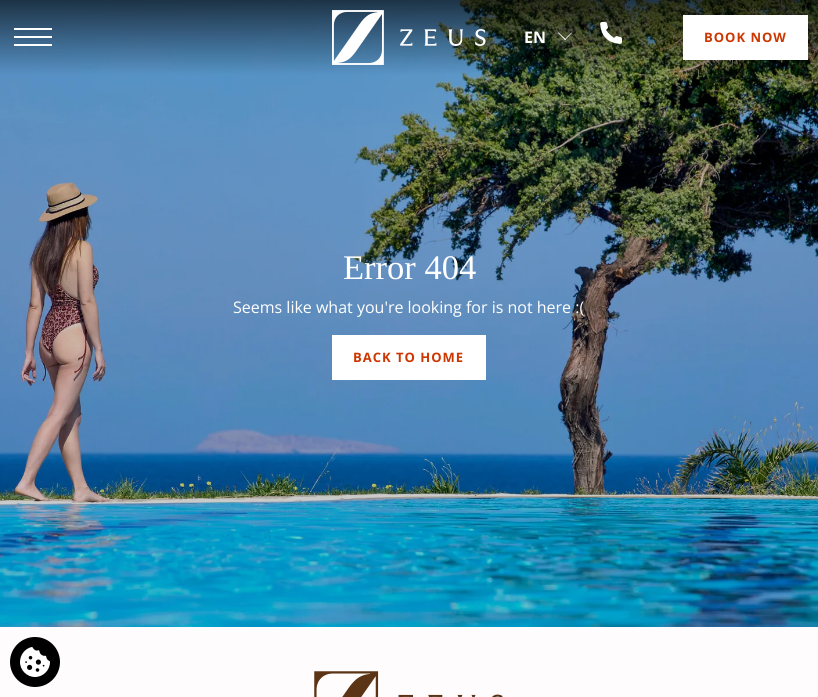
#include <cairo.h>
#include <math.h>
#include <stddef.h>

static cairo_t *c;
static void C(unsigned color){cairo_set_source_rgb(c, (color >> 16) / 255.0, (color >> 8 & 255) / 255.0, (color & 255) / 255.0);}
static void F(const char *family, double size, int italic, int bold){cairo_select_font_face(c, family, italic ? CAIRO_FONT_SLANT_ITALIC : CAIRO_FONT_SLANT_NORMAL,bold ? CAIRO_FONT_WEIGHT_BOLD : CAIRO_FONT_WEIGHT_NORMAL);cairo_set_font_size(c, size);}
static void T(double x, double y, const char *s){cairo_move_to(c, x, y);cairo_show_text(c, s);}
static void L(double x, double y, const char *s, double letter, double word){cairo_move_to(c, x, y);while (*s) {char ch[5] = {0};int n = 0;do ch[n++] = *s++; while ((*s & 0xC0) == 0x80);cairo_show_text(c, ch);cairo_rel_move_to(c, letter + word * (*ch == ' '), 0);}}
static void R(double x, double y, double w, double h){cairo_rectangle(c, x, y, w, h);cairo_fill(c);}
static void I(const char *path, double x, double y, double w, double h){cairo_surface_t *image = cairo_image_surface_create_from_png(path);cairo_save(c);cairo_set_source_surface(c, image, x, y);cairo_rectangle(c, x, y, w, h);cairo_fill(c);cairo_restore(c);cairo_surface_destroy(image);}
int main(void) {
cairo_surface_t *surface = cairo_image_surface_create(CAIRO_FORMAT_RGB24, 818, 697);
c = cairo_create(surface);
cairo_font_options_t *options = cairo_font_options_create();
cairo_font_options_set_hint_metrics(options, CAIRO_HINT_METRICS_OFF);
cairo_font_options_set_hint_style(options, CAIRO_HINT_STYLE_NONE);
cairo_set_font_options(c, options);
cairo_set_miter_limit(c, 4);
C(0xffffff);
cairo_paint(c);
I("3.png",0,0,818,627);
C(0xffffff);
R(14,36,38,2);
R(14,28,38,2);
R(14,44,38,2);
I("1.png",332,10,154,55);
F("Open Sans",16,0,1);
T(524,43,"EN");
cairo_new_path(c);
cairo_move_to(c,571.5,32.5);
cairo_line_to(c,572,33);
cairo_line_to(c,565,40);
cairo_line_to(c,564.5,39.5);
cairo_close_path(c);
cairo_fill(c);
cairo_new_path(c);
cairo_move_to(c,558.5,32.5);
cairo_line_to(c,566,39.5);
cairo_line_to(c,565,40);
cairo_line_to(c,558,33);
cairo_close_path(c);
cairo_fill(c);
I("2.png",600,22,22,22);
R(683,15,125,45);
F("Open Sans",13,0,1);
C(0xcc3600);
L(704,42,"BOOK NOW",1,0);
F("Tinos",34.5,0,0);
C(0xffffff);
T(343,279,"Error 404");
F("Open Sans",16,0,0);
T(233,313,"Seems like what you're looking for is not here :(");
R(332,335,154,45);
F("Open Sans",13,0,1);
C(0xcc3600);
L(353,362,"BACK TO HOME",1,0);
C(0xfefcfc);
R(0,627,818,70);
I("4.png",314,671,189,26);
C(0x000000);
cairo_arc(c,35,662,25,0,2 * M_PI);
cairo_fill(c);
I("5.png",20,647,30,30);
cairo_surface_write_to_png(surface, "o.png");
cairo_font_options_destroy(options);
cairo_destroy(c);
cairo_surface_destroy(surface);
return 0;
}
